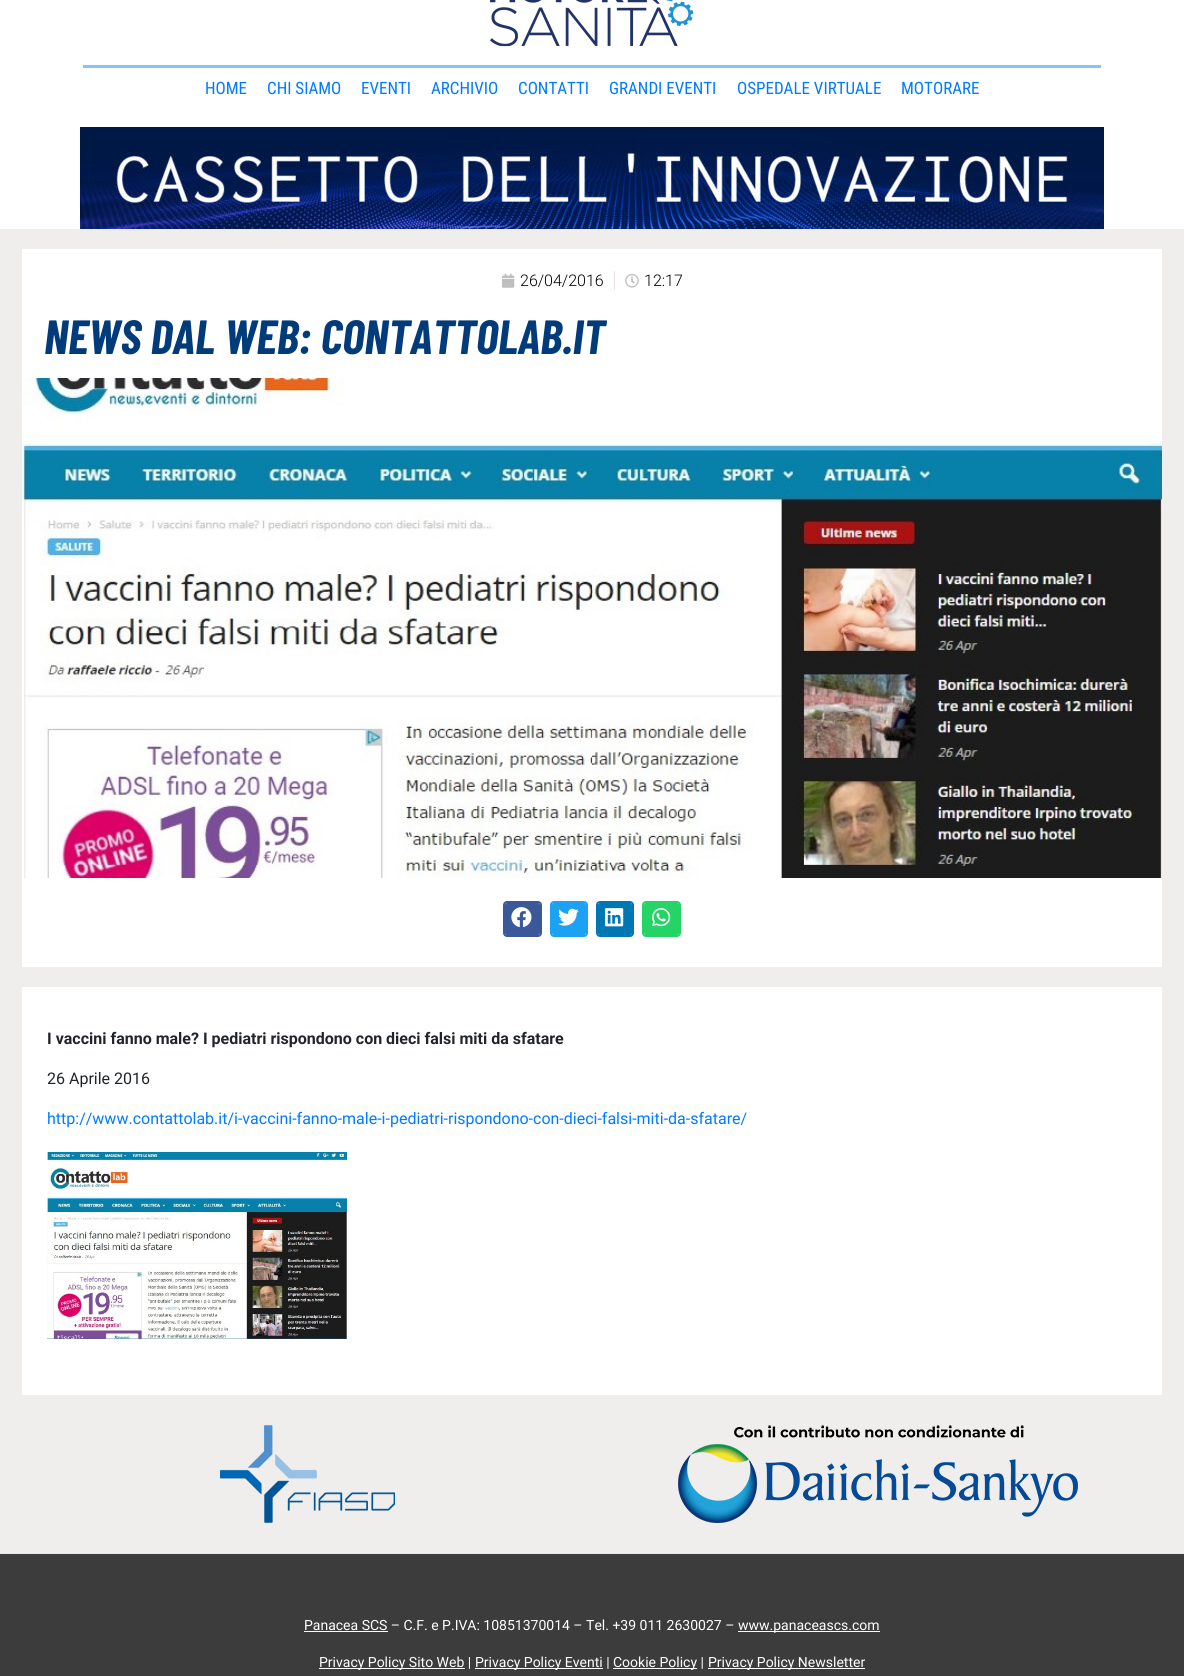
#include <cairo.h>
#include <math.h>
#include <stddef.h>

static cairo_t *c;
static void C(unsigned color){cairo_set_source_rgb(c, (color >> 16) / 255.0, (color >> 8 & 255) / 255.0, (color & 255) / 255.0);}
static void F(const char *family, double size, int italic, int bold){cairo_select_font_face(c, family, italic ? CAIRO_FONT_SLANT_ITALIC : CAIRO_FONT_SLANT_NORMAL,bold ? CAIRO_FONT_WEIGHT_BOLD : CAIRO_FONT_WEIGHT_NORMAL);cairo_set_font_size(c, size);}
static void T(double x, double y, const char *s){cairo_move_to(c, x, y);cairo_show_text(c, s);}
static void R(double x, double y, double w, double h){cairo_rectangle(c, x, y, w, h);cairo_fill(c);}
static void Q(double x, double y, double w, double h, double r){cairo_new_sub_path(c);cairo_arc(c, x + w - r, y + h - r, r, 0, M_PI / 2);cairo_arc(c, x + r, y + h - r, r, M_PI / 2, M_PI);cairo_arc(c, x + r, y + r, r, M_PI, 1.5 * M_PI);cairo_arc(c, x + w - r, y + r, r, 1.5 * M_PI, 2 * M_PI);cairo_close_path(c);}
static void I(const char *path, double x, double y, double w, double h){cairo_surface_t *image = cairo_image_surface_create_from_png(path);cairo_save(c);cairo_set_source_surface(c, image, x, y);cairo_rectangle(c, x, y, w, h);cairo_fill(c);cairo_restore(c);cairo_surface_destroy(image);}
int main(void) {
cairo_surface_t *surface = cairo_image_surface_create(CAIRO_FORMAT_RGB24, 1184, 1676);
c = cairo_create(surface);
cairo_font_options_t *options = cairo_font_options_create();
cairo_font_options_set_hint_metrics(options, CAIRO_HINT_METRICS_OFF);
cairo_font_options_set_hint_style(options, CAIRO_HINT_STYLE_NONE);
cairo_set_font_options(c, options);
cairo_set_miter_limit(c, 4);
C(0xffffff);
cairo_paint(c);
I("1.png",490,0,204,47);
C(0x86c5fb);
R(83,65,1018,3);
F("Roboto Condensed",17,0,0);
C(0x007bff);
T(205,94,"HOME");
T(267,94,"CHI SIAMO");
T(361,94,"EVENTI");
T(431,94,"ARCHIVIO");
T(518,94,"CONTATTI");
T(609,94,"GRANDI EVENTI");
T(737,94,"OSPEDALE VIRTUALE");
T(901,94,"MOTORARE");
I("2.png",80,127,1024,102);
C(0xefeeec);
R(0,229,1184,1324);
C(0xffffff);
R(22,249,1140,718);
I("3.png",502,273,13,15);
F("Roboto Light",16,0,0);
C(0x000000);
T(520,286,"26/04/2016");
C(0xefe3e3);
R(614,271,1,19);
I("4.png",625,274,14,14);
C(0x000000);
T(644,286,"12:17");
F("Barlow Condensed",48,1,1);
C(0x023b7a);
T(44,354,"NEWS DAL WEB: CONTATTOLAB.IT");
I("5.png",22,378,1140,500);
Q(504,902,37,34,3);
C(0x3b5998);
cairo_stroke(c);
Q(505,903,35,32,2);
cairo_fill(c);
I("6.png",511,907,21,21);
Q(551,902,36,34,3);
C(0x1da1f2);
cairo_stroke(c);
Q(552,903,34,32,2);
cairo_fill(c);
I("7.png",558,908,21,18);
Q(597,902,36,34,3);
C(0x0077b5);
cairo_stroke(c);
Q(598,903,34,32,2);
cairo_fill(c);
I("8.png",605,908,19,19);
Q(643,902,37,34,3);
C(0x25d366);
cairo_stroke(c);
Q(644,903,35,32,2);
cairo_fill(c);
I("9.png",652,908,19,19);
C(0xffffff);
R(22,987,1140,408);
F("Roboto",16,0,1);
C(0x212529);
T(47,1044,"I vaccini fanno male? I pediatri rispondono con dieci falsi miti da sfatare");
F("Roboto",16,0,0);
T(47,1084,"26 Aprile 2016");
C(0x007bff);
T(47,1124,"http://www.contattolab.it/i-vaccini-fanno-male-i-pediatri-rispondono-con-dieci-falsi-miti-da-sfatare/");
I("10.png",47,1152,300,187);
I("11.png",220,1425,175,98);
I("12.png",678,1425,400,98);
C(0x3c3c3c);
R(0,1554,1184,122);
C(0xe9ecef);
R(0,1553,1184,1);
F("Roboto",14,0,0);
C(0xffffff);
T(304,1630,"Panacea SCS – C.F. e P.IVA: 10851370014 – Tel. +39 011 2630027 –");
R(304,1631,84,1);
R(738,1631,142,1);
T(738,1630,"www.panaceascs.com");
R(319,1668,146,1);
T(319,1667,"Privacy Policy Sito Web |");
R(475,1668,128,1);
T(475,1667,"Privacy Policy Eventi |");
R(613,1668,84,1);
T(613,1667,"Cookie Policy |");
R(708,1668,157,1);
T(708,1667,"Privacy Policy Newsletter");
cairo_surface_write_to_png(surface, "o.png");
cairo_font_options_destroy(options);
cairo_destroy(c);
cairo_surface_destroy(surface);
return 0;
}
